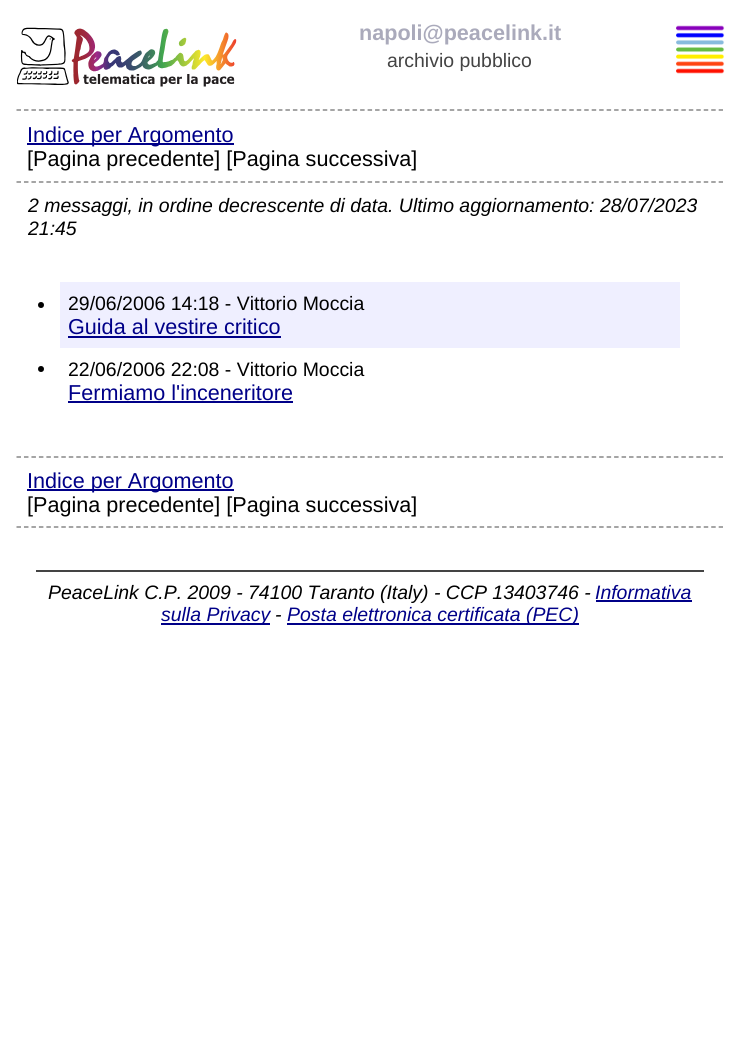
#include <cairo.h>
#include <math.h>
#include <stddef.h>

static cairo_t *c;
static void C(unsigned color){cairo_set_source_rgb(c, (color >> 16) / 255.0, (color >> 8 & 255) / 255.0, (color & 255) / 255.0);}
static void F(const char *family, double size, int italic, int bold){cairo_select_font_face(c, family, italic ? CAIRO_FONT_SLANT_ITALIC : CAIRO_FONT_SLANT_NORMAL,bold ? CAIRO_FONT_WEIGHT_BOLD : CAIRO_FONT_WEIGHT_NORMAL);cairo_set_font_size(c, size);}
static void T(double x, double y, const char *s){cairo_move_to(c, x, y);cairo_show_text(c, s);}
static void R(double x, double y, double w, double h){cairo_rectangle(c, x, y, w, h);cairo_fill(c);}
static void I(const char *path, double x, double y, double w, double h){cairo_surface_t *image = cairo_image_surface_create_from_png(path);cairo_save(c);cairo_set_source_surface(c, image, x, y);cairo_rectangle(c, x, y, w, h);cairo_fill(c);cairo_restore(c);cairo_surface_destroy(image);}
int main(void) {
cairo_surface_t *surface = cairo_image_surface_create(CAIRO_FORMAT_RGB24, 739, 1037);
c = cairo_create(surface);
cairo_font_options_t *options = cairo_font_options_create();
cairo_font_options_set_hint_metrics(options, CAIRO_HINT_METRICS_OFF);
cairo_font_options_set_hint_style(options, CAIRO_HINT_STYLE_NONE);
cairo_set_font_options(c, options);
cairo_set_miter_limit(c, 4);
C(0xffffff);
cairo_paint(c);
I("1.png",17,27,220,60);
F("Liberation Sans",21.6,0,1);
C(0xaaaabb);
T(359,40,"napoli@peacelink.it");
F("Liberation Sans",19.45,0,0);
C(0x444444);
T(387,67,"archivio pubblico");
I("2.png",676,25,49,49);
cairo_new_path(c);
cairo_move_to(c,16.5,110);
cairo_line_to(c,723,110);
C(0x888888);
cairo_set_line_width(c,1.5);
cairo_set_dash(c,(double[]){4.5,2.97},2,0);
cairo_stroke(c);
cairo_new_path(c);
cairo_move_to(c,16.5,182);
cairo_line_to(c,723,182);
cairo_stroke(c);
C(0x000088);
R(27,143,207,2);
F("Liberation Sans",21.6,0,0);
T(27,142,"Indice per Argomento");
C(0x000000);
T(27,166,"[Pagina precedente] [Pagina successiva]");
F("Liberation Sans",19.45,1,0);
T(28,212,"2 messaggi, in ordine decrescente di data. Ultimo aggiornamento: 28/07/2023");
T(28,235,"21:45");
C(0xefefff);
R(60,282,620,66);
C(0x000000);
cairo_new_path(c);
cairo_arc(c,41,305,3,0,2 * M_PI);
cairo_fill(c);
F("Liberation Sans",19.45,0,0);
T(68,310,"29/06/2006 14:18 - Vittorio Moccia");
F("Liberation Sans",21.6,0,0);
C(0x000088);
T(68,334,"Guida al vestire critico");
R(68,336,213,2);
C(0x000000);
cairo_new_path(c);
cairo_arc(c,41,369,3,0,2 * M_PI);
cairo_fill(c);
F("Liberation Sans",19.45,0,0);
T(68,376,"22/06/2006 22:08 - Vittorio Moccia");
F("Liberation Sans",21.6,0,0);
C(0x000088);
T(68,400,"Fermiamo l'inceneritore");
R(68,401,225,2);
cairo_new_path(c);
cairo_move_to(c,16.5,457);
cairo_line_to(c,723,457);
C(0x888888);
cairo_stroke(c);
cairo_new_path(c);
cairo_move_to(c,16.5,527);
cairo_line_to(c,723,527);
cairo_stroke(c);
C(0x000088);
R(27,489,207,2);
T(27,488,"Indice per Argomento");
C(0x000000);
T(27,512,"[Pagina precedente] [Pagina successiva]");
C(0x444444);
R(36,570,668,2);
F("Liberation Sans",19.45,1,0);
C(0x000000);
T(48,599,"PeaceLink C.P. 2009 - 74100 Taranto (Italy) - CCP 13403746 -");
C(0x000088);
T(595,599,"Informativa");
R(596,600,96,2);
R(161,623,109,2);
T(161,621,"sulla Privacy");
C(0x000000);
T(275,621,"-");
C(0x000088);
R(287,623,292,2);
T(287,621,"Posta elettronica certificata (PEC)");
cairo_surface_write_to_png(surface, "o.png");
cairo_font_options_destroy(options);
cairo_destroy(c);
cairo_surface_destroy(surface);
return 0;
}
